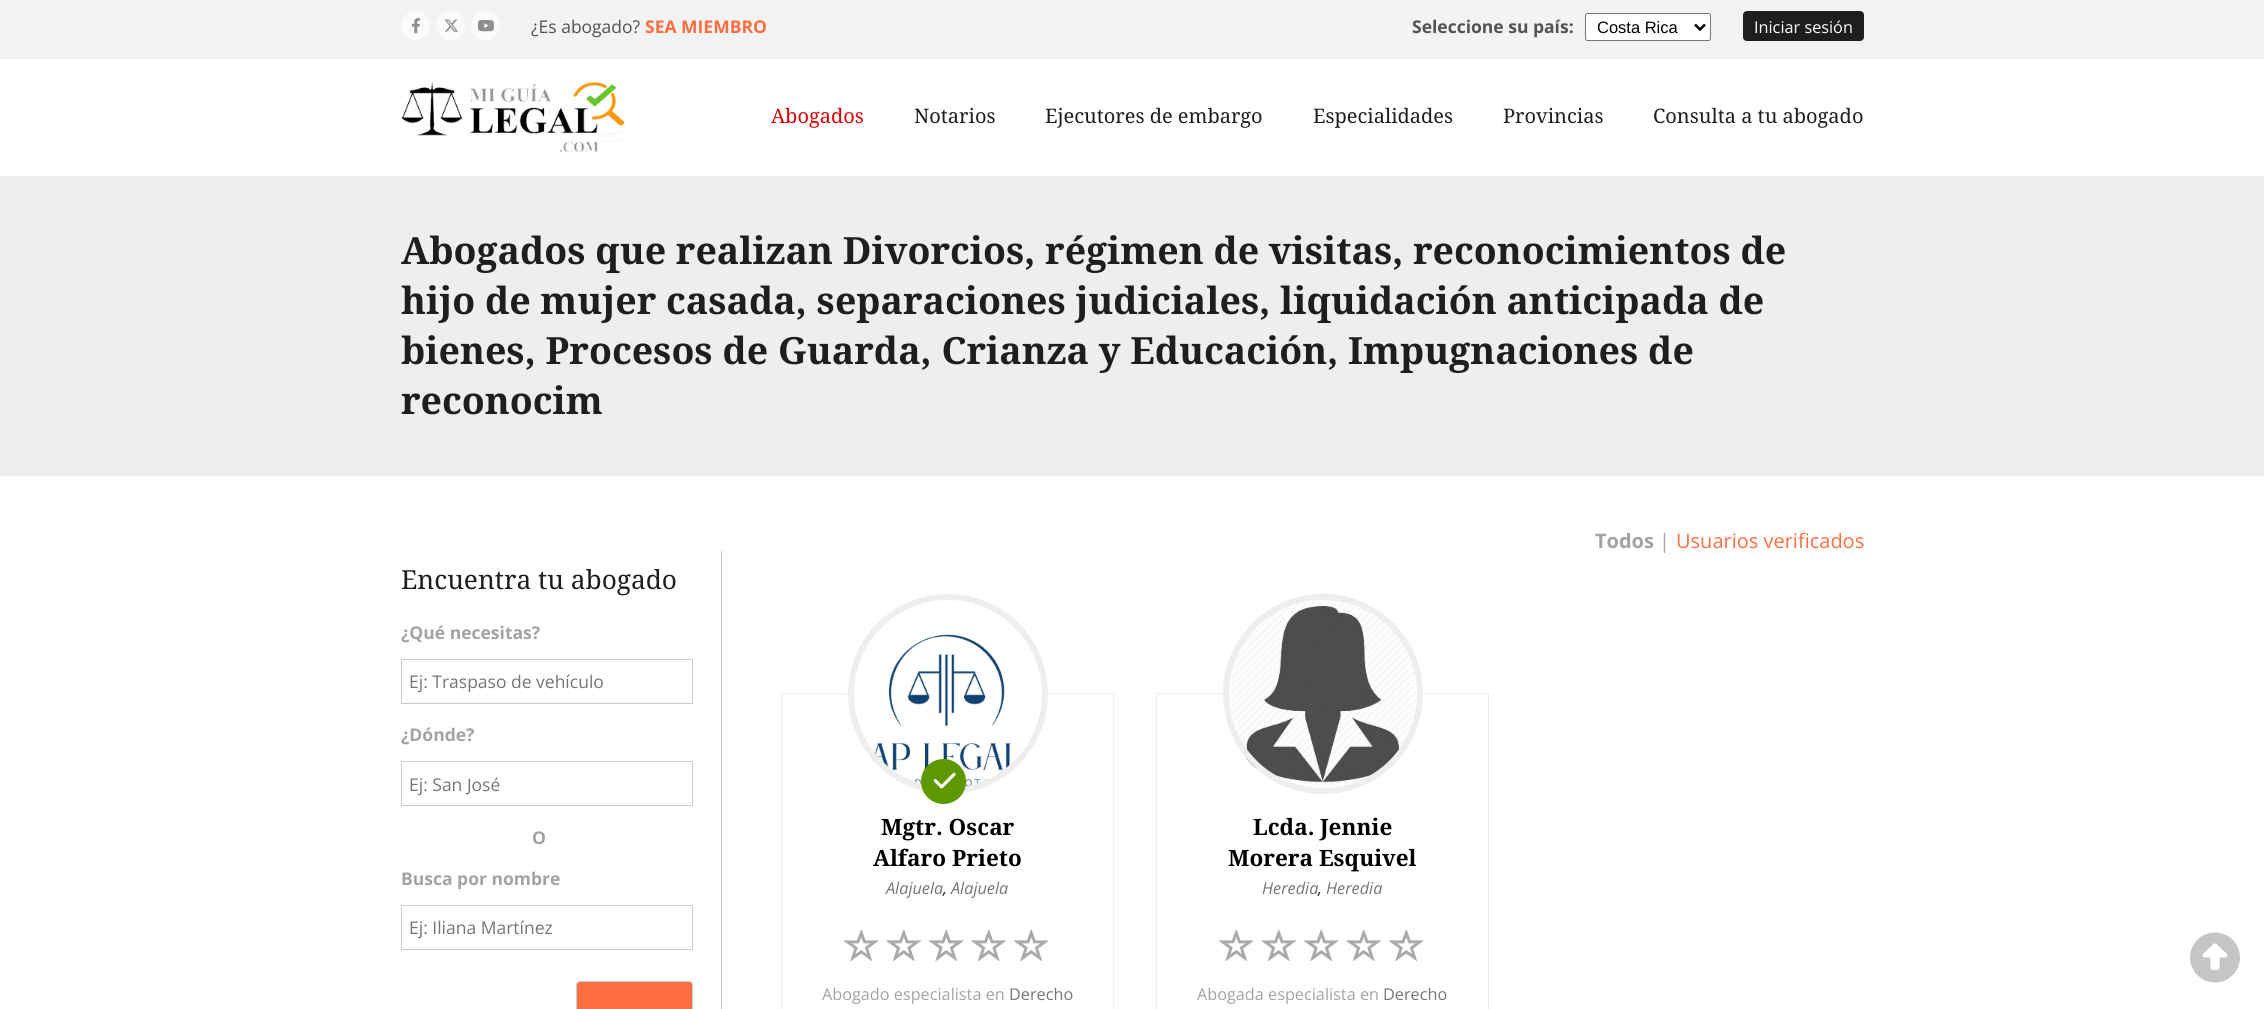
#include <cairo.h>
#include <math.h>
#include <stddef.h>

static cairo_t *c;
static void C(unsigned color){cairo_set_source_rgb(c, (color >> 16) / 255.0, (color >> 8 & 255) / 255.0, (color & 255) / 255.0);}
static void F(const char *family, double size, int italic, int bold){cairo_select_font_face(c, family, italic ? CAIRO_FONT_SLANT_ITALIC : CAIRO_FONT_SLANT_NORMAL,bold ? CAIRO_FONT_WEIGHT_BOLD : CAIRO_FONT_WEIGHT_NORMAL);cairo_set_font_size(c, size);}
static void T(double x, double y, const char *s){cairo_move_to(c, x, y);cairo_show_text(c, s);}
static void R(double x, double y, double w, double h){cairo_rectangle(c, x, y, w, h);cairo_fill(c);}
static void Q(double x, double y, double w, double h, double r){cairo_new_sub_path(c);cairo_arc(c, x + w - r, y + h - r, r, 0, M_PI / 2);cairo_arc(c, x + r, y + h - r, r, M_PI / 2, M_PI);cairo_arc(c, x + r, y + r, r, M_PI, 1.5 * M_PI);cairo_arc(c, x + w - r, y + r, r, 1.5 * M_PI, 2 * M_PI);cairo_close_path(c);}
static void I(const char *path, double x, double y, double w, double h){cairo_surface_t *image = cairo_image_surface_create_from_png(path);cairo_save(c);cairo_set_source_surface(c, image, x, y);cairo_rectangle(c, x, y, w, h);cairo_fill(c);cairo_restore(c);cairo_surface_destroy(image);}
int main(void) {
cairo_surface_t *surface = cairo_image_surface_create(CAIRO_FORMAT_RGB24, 2264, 1009);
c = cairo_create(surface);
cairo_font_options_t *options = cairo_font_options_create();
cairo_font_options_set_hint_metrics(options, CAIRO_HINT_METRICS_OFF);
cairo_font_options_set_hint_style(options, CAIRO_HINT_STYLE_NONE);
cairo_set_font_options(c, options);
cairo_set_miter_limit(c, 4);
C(0xffffff);
cairo_paint(c);
C(0xf3f3f3);
R(0,0,2264,59);
cairo_new_path(c);
cairo_move_to(c,0,58);
cairo_line_to(c,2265,58);
C(0xe9e9e9);
cairo_set_line_width(c,1.2);
cairo_set_dash(c,(double[]){3.75,2.5},2,0);
cairo_stroke(c);
C(0xfbfbfb);
cairo_arc(c,415.5,25.5,14.5,0,2 * M_PI);
cairo_fill(c);
I("1.png",411,18,9,16);
cairo_arc(c,450.5,25.5,14.5,0,2 * M_PI);
cairo_fill(c);
I("2.png",444,19,14,13);
cairo_arc(c,485.5,25.5,14.5,0,2 * M_PI);
cairo_fill(c);
I("3.png",477,20,17,12);
F("Open Sans",17.5,0,0);
C(0x525252);
T(531,33,"¿Es abogado?");
F("Open Sans",17.5,0,1);
C(0xff6e41);
T(645,33,"SEA MIEMBRO");
C(0x525252);
T(1412,33,"Seleccione su país:");
C(0xffffff);
Q(1585.5,13.5,125,27,2);
cairo_fill_preserve(c);
C(0x767676);
cairo_set_line_width(c,1);
cairo_set_dash(c,NULL,0,0);
cairo_stroke(c);
cairo_new_path(c);
cairo_move_to(c,1695,24.5);
cairo_line_to(c,1700,29.5);
cairo_line_to(c,1705,24.5);
C(0x000000);
cairo_set_line_width(c,2.5);
cairo_stroke(c);
F("Liberation Sans",16.5,0,0);
T(1597,33,"Costa Rica");
C(0x1e1e1e);
Q(1743,11,121,30,4);
cairo_fill(c);
F("Open Sans",16.25,0,0);
C(0xffffff);
T(1754,33,"Iniciar sesión");
I("4.png",401,81,226,72);
F("Droid Serif",20,0,0);
C(0xd70204);
T(771,123,"Abogados");
C(0x1e1e1e);
T(914,123,"Notarios");
T(1045,123,"Ejecutores de embargo");
T(1313,123,"Especialidades");
T(1503,123,"Provincias");
T(1653,123,"Consulta a tu abogado");
C(0xeeeeee);
R(0,176,2264,300);
F("Droid Serif",37.5,0,1);
C(0x1e1e1e);
T(401,264,"Abogados que realizan Divorcios, régimen de visitas, reconocimientos de");
T(401,314,"hijo de mujer casada, separaciones judiciales, liquidación anticipada de");
T(401,364,"bienes, Procesos de Guarda, Crianza y Educación, Impugnaciones de");
T(401,414,"reconocim");
C(0xc5c5c5);
R(721,551,1,458);
F("Droid Serif",26.25,0,0);
C(0x1e1e1e);
T(401,589,"Encuentra tu abogado");
F("Open Sans",17.5,0,1);
C(0xa3a3a3);
T(401,639,"¿Qué necesitas?");
cairo_rectangle(c,401.5,659.5,291,44);
C(0xcccccc);
cairo_set_line_width(c,1);
cairo_stroke(c);
F("Open Sans",17.5,0,0);
C(0x757575);
T(409,688,"Ej: Traspaso de vehículo");
F("Open Sans",17.5,0,1);
C(0xa3a3a3);
T(401,741,"¿Dónde?");
cairo_rectangle(c,401.5,761.5,291,44);
C(0xcccccc);
cairo_stroke(c);
F("Open Sans",17.5,0,0);
C(0x757575);
T(409,791,"Ej: San José");
F("Open Sans",17.5,0,1);
C(0xa3a3a3);
T(532,844,"O");
T(401,885,"Busca por nombre");
cairo_rectangle(c,401.5,905.5,291,44);
C(0xcccccc);
cairo_stroke(c);
F("Open Sans",17.5,0,0);
C(0x757575);
T(409,934,"Ej: Iliana Martínez");
C(0xff6e41);
Q(576.5,981.5,116,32,3.5);
cairo_fill_preserve(c);
C(0xcccccc);
cairo_stroke(c);
F("Open Sans",20,0,1);
C(0xa3a3a3);
T(1595,548,"Todos");
F("Open Sans",20,0,0);
T(1659,548,"|");
C(0xff6e41);
T(1676,548,"Usuarios verificados");
cairo_rectangle(c,781.5,693.5,332,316);
C(0xeeeeee);
cairo_stroke(c);
I("5.png",847,633,200,156);
cairo_arc(c,948,694,97,0,2 * M_PI);
cairo_set_line_width(c,6);
cairo_stroke(c);
C(0x5e9800);
cairo_arc(c,943.5,781.5,22.5,0,2 * M_PI);
cairo_fill(c);
I("6.png",933,772,23,17);
F("Droid Serif",22.5,0,1);
C(0x000000);
T(881,835,"Mgtr. Oscar");
T(873,866,"Alfaro Prieto");
F("Open Sans",16.25,1,0);
C(0x757575);
T(886,894,"Alajuela");
C(0x1e1e1e);
T(943,894,",");
C(0x757575);
T(951,894,"Alajuela");
I("7.png",843,929,36,32);
I("8.png",886,929,35,32);
I("7.png",928,929,36,32);
I("8.png",971,929,35,32);
I("7.png",1013,929,36,32);
F("Open Sans",16.25,0,0);
C(0xa3a3a3);
T(822,1000,"Abogado especialista en");
C(0x757575);
T(1009,1000,"Derecho");
cairo_rectangle(c,1156.5,693.5,332,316);
C(0xeeeeee);
cairo_set_line_width(c,1);
cairo_stroke(c);
I("9.png",1222,593,200,201);
cairo_arc(c,1323,694,97,0,2 * M_PI);
cairo_set_line_width(c,6);
cairo_stroke(c);
F("Droid Serif",22.5,0,1);
C(0x000000);
T(1253,835,"Lcda. Jennie");
T(1228,866,"Morera Esquivel");
F("Open Sans",16.25,1,0);
C(0x757575);
T(1262,894,"Heredia");
C(0x1e1e1e);
T(1318,894,",");
C(0x757575);
T(1326,894,"Heredia");
I("7.png",1218,929,36,32);
I("8.png",1261,929,35,32);
I("7.png",1303,929,36,32);
I("8.png",1346,929,35,32);
I("7.png",1388,929,36,32);
F("Open Sans",16.25,0,0);
C(0xa3a3a3);
T(1197,1000,"Abogada especialista en");
C(0x757575);
T(1383,1000,"Derecho");
I("10.png",2190,932,50,51);
cairo_surface_write_to_png(surface, "o.png");
cairo_font_options_destroy(options);
cairo_destroy(c);
cairo_surface_destroy(surface);
return 0;
}
